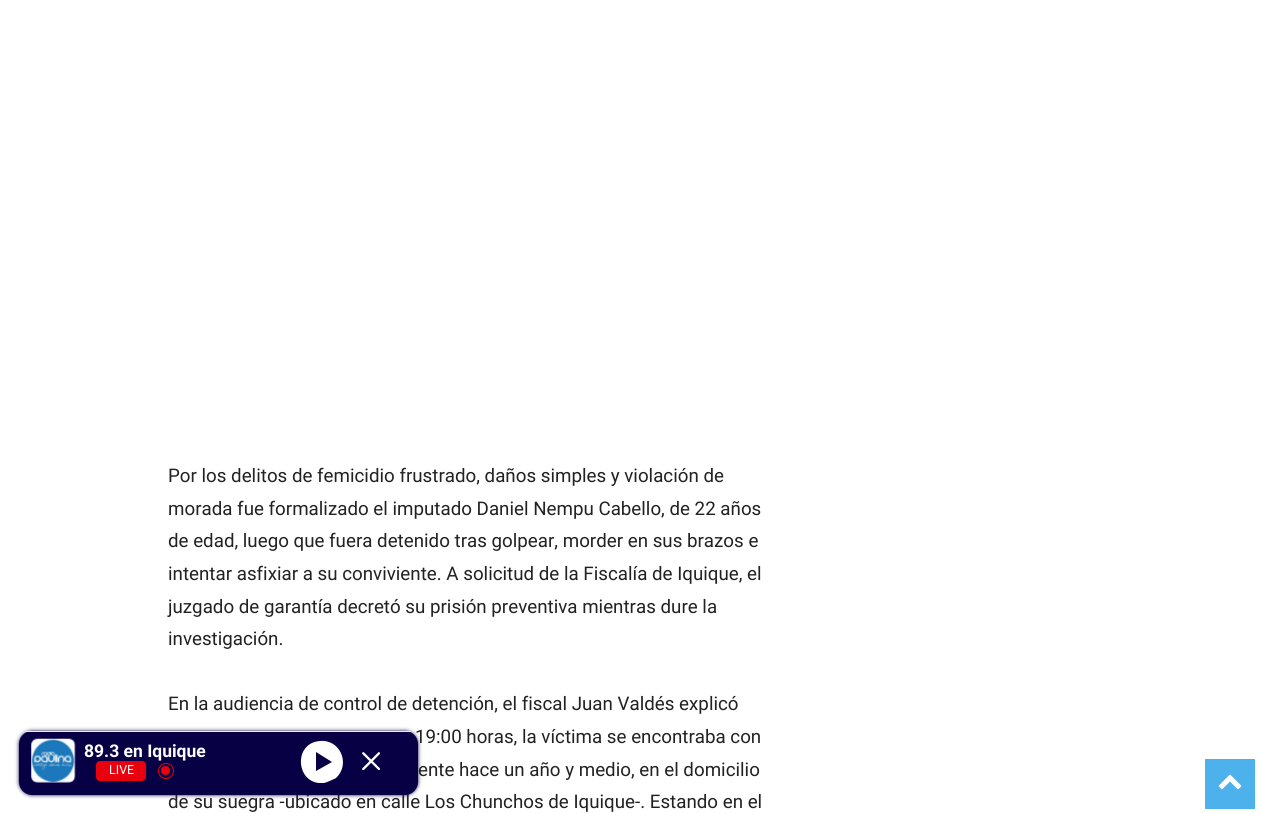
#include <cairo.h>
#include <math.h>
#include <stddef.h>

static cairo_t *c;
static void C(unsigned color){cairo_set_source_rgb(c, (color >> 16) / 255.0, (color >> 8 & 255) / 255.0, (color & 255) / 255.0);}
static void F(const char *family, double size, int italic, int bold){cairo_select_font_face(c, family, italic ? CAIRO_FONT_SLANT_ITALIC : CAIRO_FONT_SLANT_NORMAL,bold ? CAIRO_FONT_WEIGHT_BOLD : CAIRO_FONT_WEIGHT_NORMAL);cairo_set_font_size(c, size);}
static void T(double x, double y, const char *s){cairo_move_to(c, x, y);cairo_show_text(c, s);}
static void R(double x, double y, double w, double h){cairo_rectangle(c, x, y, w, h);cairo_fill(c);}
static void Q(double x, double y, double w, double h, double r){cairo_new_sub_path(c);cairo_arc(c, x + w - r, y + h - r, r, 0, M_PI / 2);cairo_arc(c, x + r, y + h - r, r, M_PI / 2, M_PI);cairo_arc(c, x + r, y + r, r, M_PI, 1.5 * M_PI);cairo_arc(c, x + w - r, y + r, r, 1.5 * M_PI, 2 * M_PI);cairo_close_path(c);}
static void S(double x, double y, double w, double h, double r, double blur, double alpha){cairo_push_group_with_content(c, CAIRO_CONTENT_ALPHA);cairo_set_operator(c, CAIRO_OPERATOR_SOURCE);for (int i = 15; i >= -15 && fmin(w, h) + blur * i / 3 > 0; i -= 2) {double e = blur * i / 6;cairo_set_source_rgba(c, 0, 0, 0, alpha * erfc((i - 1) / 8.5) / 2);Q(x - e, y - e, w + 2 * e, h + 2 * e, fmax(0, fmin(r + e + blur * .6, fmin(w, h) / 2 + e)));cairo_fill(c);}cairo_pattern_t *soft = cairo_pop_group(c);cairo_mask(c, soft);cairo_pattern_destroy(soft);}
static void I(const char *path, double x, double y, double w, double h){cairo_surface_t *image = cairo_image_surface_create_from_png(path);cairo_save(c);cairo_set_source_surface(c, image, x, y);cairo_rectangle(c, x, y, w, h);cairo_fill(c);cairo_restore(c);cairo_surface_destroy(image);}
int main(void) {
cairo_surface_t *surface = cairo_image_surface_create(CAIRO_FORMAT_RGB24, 1261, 813);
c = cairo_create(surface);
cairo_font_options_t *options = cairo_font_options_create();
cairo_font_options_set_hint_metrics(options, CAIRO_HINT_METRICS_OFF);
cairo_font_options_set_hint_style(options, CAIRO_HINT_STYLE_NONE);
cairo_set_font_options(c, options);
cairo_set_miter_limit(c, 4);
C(0xffffff);
cairo_paint(c);
C(0x070044);
S(19,731,399,64,13,2,1);
F("Roboto",18.75,0,0);
C(0x222222);
T(415,743,"19:00 horas, la víctima se encontraba con");
T(168,808,"de su suegra -ubicado en calle Los Chunchos de Iquique-. Estando en el");
C(0x070044);
Q(19,731,399,64,13);
cairo_fill(c);
C(0xededed);
R(25,731,386,1);
I("1.png",31,738,45,45);
F("Roboto",17.5,0,1);
C(0xffffff);
T(84,757,"89.3 en Iquique");
C(0xe8000e);
Q(96,761,50,20,4);
cairo_fill(c);
F("Roboto",12.5,0,0);
C(0xffffff);
T(109,774,"LIVE");
C(0xe8000e);
cairo_new_path(c);
cairo_arc(c,165.5,770.5,4.5,0,2 * M_PI);
cairo_fill(c);
cairo_arc(c,166,771,7.5,0,2 * M_PI);
cairo_set_line_width(c,1);
cairo_stroke(c);
cairo_save(c);
cairo_rectangle(c,300,739,43,44);
cairo_clip(c);
C(0xffffff);
cairo_new_path(c);
cairo_move_to(c,320,741);
cairo_curve_to(c,292,743,296,786,324,783);
cairo_curve_to(c,328,782,332,780,336,778);
cairo_curve_to(c,351,764,340,739,320,741);
cairo_close_path(c);
cairo_move_to(c,324,757);
cairo_line_to(c,332,762);
cairo_line_to(c,316,771);
cairo_line_to(c,316,752);
cairo_close_path(c);
cairo_fill(c);
cairo_restore(c);
I("2.png",362,752,18,18);
F("Roboto",18.75,0,0);
C(0x222222);
T(168,482,"Por los delitos de femicidio frustrado, daños simples y violación de");
T(168,515,"morada fue formalizado el imputado Daniel Nempu Cabello, de 22 años");
T(168,547,"de edad, luego que fuera detenido tras golpear, morder en sus brazos e");
T(168,580,"intentar asfixiar a su conviviente. A solicitud de la Fiscalía de Iquique, el");
T(168,613,"juzgado de garantía decretó su prisión preventiva mientras dure la");
T(168,645,"investigación.");
T(168,710,"En la audiencia de control de detención, el fiscal Juan Valdés explicó");
T(418,776,"ente hace un año y medio, en el domicilio");
C(0x4db2ec);
R(1205,759,50,50);
I("3.png",1218,774,24,16);
cairo_surface_write_to_png(surface, "o.png");
cairo_font_options_destroy(options);
cairo_destroy(c);
cairo_surface_destroy(surface);
return 0;
}
